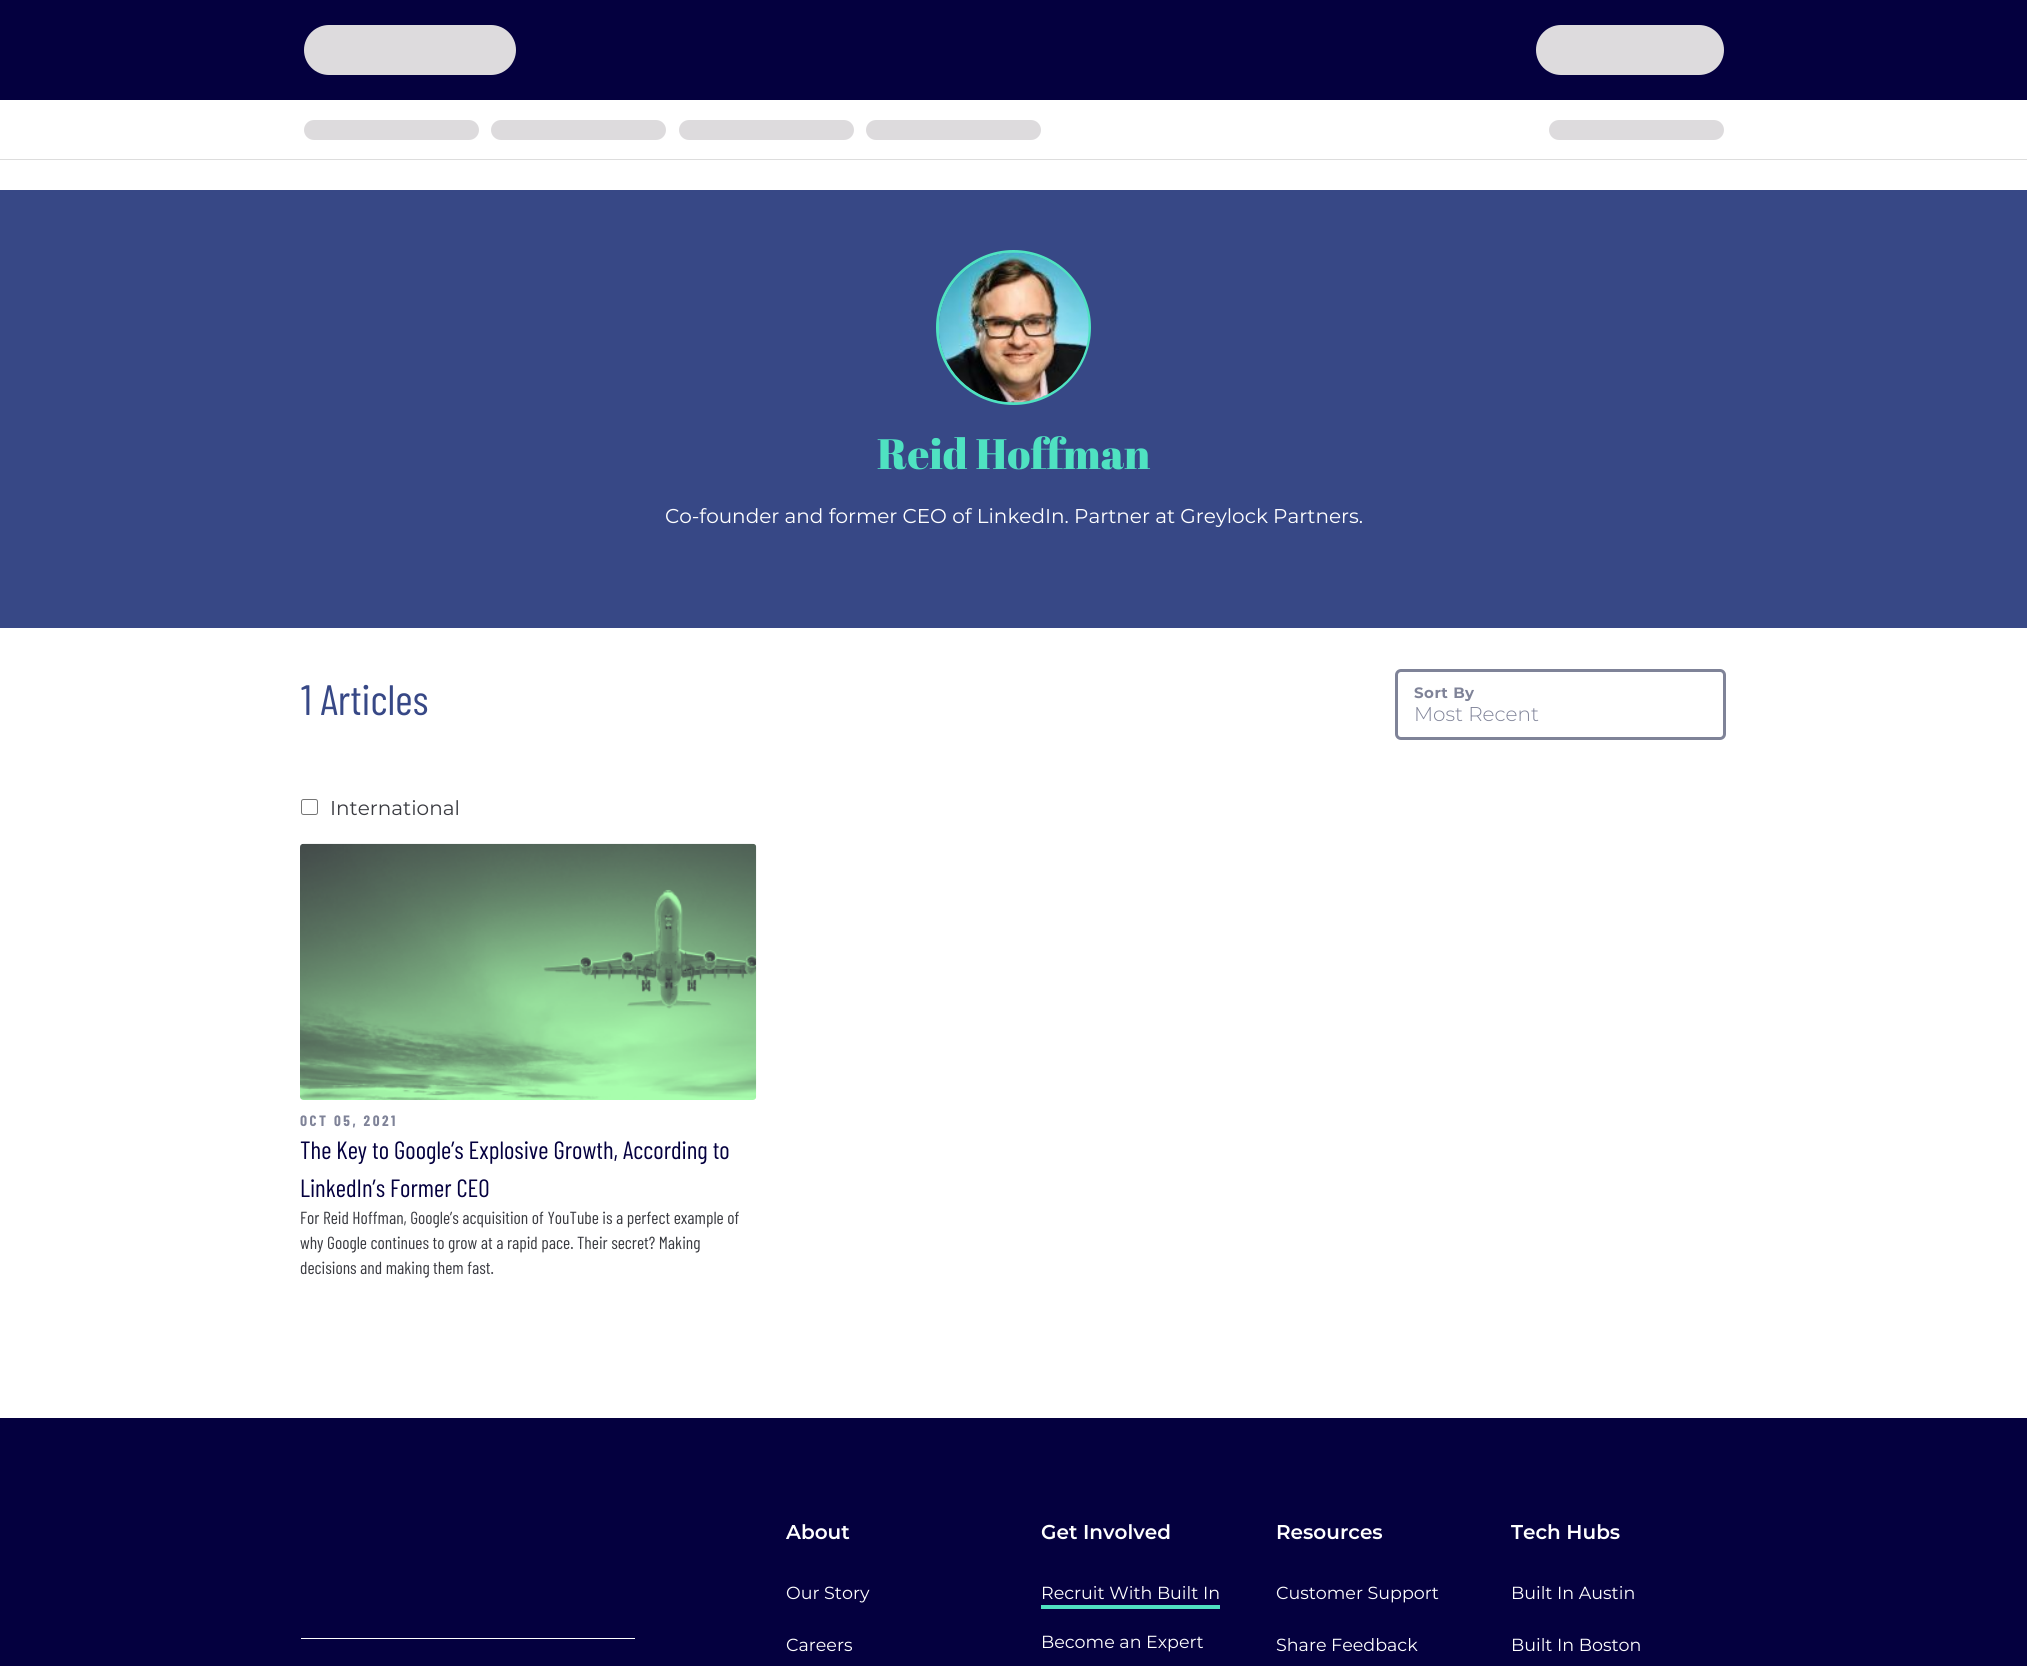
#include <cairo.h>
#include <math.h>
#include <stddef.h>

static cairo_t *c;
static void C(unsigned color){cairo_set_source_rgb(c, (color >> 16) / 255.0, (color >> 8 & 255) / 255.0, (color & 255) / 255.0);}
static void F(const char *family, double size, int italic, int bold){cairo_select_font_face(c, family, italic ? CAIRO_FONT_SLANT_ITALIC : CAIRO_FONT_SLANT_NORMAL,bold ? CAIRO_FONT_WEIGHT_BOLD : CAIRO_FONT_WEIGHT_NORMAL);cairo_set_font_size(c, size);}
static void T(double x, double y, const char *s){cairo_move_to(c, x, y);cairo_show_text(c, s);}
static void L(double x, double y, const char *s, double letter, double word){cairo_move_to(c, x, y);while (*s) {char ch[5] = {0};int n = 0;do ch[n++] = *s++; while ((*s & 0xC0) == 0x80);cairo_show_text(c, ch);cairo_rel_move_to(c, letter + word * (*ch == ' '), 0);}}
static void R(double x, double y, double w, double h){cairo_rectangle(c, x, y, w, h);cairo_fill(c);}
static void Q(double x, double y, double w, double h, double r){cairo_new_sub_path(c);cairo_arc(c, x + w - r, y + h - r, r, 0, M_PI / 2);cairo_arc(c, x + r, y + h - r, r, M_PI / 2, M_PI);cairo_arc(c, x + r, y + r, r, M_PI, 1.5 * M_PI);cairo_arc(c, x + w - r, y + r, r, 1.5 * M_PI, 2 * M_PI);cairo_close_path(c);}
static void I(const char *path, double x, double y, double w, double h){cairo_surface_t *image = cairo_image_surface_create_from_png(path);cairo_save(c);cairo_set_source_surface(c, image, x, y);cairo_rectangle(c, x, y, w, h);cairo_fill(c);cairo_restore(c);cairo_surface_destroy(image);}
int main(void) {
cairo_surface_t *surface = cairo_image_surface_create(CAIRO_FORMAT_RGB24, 2027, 1666);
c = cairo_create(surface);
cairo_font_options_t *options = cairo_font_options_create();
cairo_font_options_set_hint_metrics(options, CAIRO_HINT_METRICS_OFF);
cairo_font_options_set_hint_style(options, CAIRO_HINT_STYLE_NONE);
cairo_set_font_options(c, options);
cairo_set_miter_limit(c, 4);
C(0xffffff);
cairo_paint(c);
C(0x04003f);
R(0,0,2027,100);
C(0xdddbdd);
Q(304,25,212,50,25);
cairo_fill(c);
Q(1536,25,188,50,25);
cairo_fill(c);
C(0xdddddd);
R(0,159,2027,1);
C(0xdddbdd);
Q(304,120,175,20,10);
cairo_fill(c);
Q(491,120,175,20,10);
cairo_fill(c);
Q(679,120,175,20,10);
cairo_fill(c);
Q(866,120,175,20,10);
cairo_fill(c);
Q(1549,120,175,20,10);
cairo_fill(c);
C(0x374886);
R(0,190,2027,438);
cairo_arc(c,1013.5,327.5,76,0,2 * M_PI);
C(0x4fe2c1);
cairo_set_line_width(c,3);
cairo_stroke(c);
I("1.png",939,252,150,151);
F("Abril Fatface",42.5,0,0);
T(877,469,"Reid Hoffman");
F("Montserrat",20,0,0);
C(0xffffff);
T(665,523,"Co-founder and former CEO of LinkedIn. Partner at Greylock Partners.");
F("Barlow Condensed",42.5,0,0);
C(0x374886);
T(301,715,"1 Articles");
Q(301.5,799.5,16,15,2);
C(0x767676);
cairo_set_line_width(c,1);
cairo_stroke(c);
F("Montserrat",20,0,0);
C(0x3a3b41);
T(330,815,"International");
I("2.png",300,843,457,257);
F("Barlow Condensed",15,0,1);
C(0x7f8398);
L(300,1126,"OCT 05, 2021",2.5,0);
F("Barlow Condensed",25,0,0);
C(0x04003f);
T(300,1159,"The Key to Google’s Explosive Growth, According to");
T(300,1197,"LinkedIn’s Former CEO");
F("Barlow Condensed",17.5,0,0);
C(0x3a3b41);
T(300,1224,"For Reid Hoffman, Google’s acquisition of YouTube is a perfect example of");
T(300,1249,"why Google continues to grow at a rapid pace. Their secret? Making");
T(300,1274,"decisions and making them fast.");
Q(1396.5,670.5,328,68,4.5);
C(0x7f8398);
cairo_set_line_width(c,3);
cairo_stroke(c);
F("Montserrat",15,0,1);
L(1414,698,"Sort By",.5,0);
F("Montserrat Light",20,0,0);
T(1414,721,"Most Recent");
C(0x04003f);
R(0,1418,2027,248);
C(0xffffff);
R(301,1638,334,1);
F("Montserrat SemiBold",20,0,0);
T(786,1539,"About");
F("Montserrat",17.5,0,0);
T(786,1599,"Our Story");
T(786,1651,"Careers");
F("Montserrat SemiBold",20,0,0);
T(1041,1539,"Get Involved");
F("Montserrat",17.5,0,0);
T(1041,1599,"Recruit With Built In");
C(0x4fe2c1);
R(1041,1605,179,4);
C(0xffffff);
T(1041,1648,"Become an Expert");
F("Montserrat SemiBold",20,0,0);
T(1276,1539,"Resources");
F("Montserrat",17.5,0,0);
T(1276,1599,"Customer Support");
T(1276,1651,"Share Feedback");
F("Montserrat SemiBold",20,0,0);
T(1511,1539,"Tech Hubs");
F("Montserrat",17.5,0,0);
T(1511,1599,"Built In Austin");
T(1511,1651,"Built In Boston");
cairo_surface_write_to_png(surface, "o.png");
cairo_font_options_destroy(options);
cairo_destroy(c);
cairo_surface_destroy(surface);
return 0;
}
